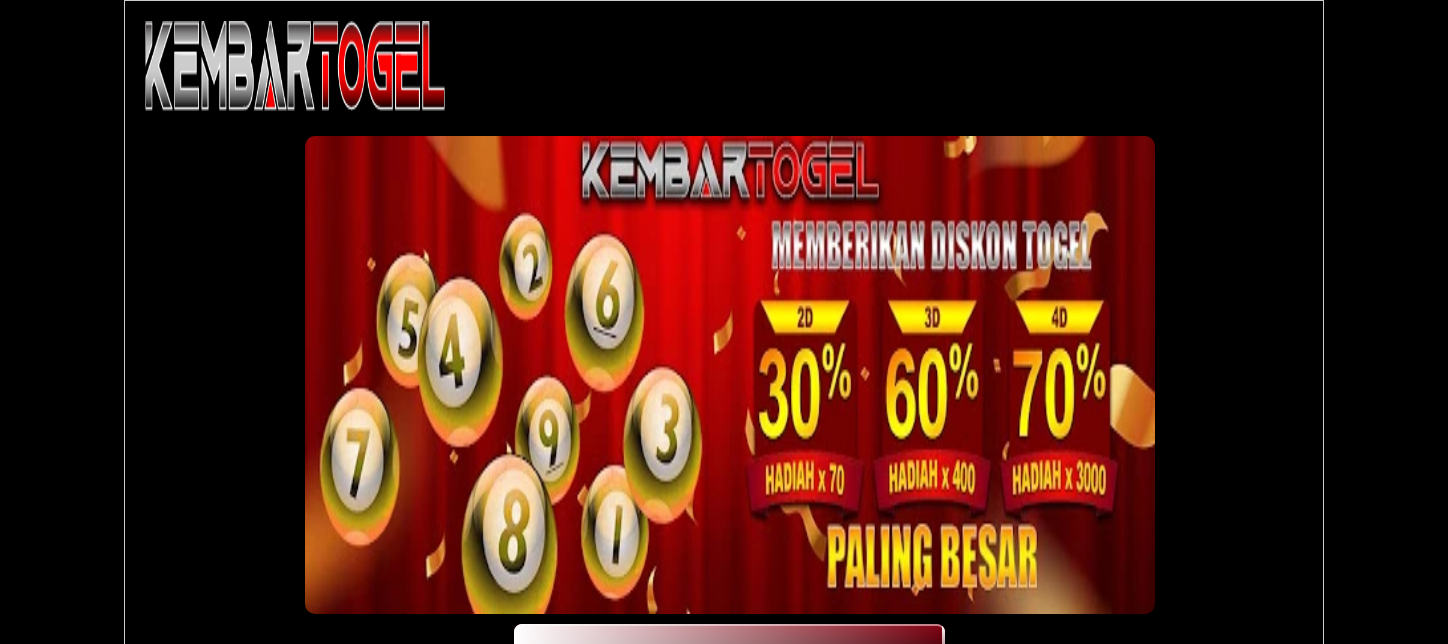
#include <cairo.h>
#include <math.h>
#include <stddef.h>

static cairo_t *c;
static void C(unsigned color){cairo_set_source_rgb(c, (color >> 16) / 255.0, (color >> 8 & 255) / 255.0, (color & 255) / 255.0);}
static void R(double x, double y, double w, double h){cairo_rectangle(c, x, y, w, h);cairo_fill(c);}
static void Q(double x, double y, double w, double h, double r){cairo_new_sub_path(c);cairo_arc(c, x + w - r, y + h - r, r, 0, M_PI / 2);cairo_arc(c, x + r, y + h - r, r, M_PI / 2, M_PI);cairo_arc(c, x + r, y + r, r, M_PI, 1.5 * M_PI);cairo_arc(c, x + w - r, y + r, r, 1.5 * M_PI, 2 * M_PI);cairo_close_path(c);}
static void I(const char *path, double x, double y, double w, double h){cairo_surface_t *image = cairo_image_surface_create_from_png(path);cairo_save(c);cairo_set_source_surface(c, image, x, y);cairo_rectangle(c, x, y, w, h);cairo_fill(c);cairo_restore(c);cairo_surface_destroy(image);}
int main(void) {
cairo_surface_t *surface = cairo_image_surface_create(CAIRO_FORMAT_RGB24, 1448, 644);
c = cairo_create(surface);
cairo_font_options_t *options = cairo_font_options_create();
cairo_font_options_set_hint_metrics(options, CAIRO_HINT_METRICS_OFF);
cairo_font_options_set_hint_style(options, CAIRO_HINT_STYLE_NONE);
cairo_set_font_options(c, options);
cairo_set_miter_limit(c, 4);
cairo_pattern_t *gradient;
C(0x000000);
cairo_paint(c);
cairo_rectangle(c,124.5,.5,1199,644);
C(0xcccccc);
cairo_set_line_width(c,1);
cairo_stroke(c);
I("1.png",145,21,300,90);
I("2.png",305,136,850,478);
gradient = cairo_pattern_create_linear(730,624,730,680);
cairo_pattern_add_color_stop_rgba(gradient,0,0.525,0.004,0.067,1);
cairo_pattern_add_color_stop_rgba(gradient,1,0,0,0,1);
cairo_set_source(c,gradient);
cairo_pattern_destroy(gradient);
Q(514,624,431,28,8);
cairo_fill(c);
cairo_set_source_rgba(c,1,1,1,0.5);
cairo_new_path(c);
cairo_move_to(c,522,626);
cairo_line_to(c,937,626);
cairo_curve_to(c,941,626,945,630,945,634);
cairo_line_to(c,945,632);
cairo_curve_to(c,945,628,941,624,937,624);
cairo_line_to(c,522,624);
cairo_curve_to(c,518,624,514,628,514,632);
cairo_line_to(c,514,634);
cairo_curve_to(c,514,630,518,626,522,626);
cairo_close_path(c);
cairo_fill(c);
gradient = cairo_pattern_create_linear(945,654,514,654);
cairo_pattern_add_color_stop_rgba(gradient,0,1,1,1,0);
cairo_pattern_add_color_stop_rgba(gradient,1,1,1,1,1);
cairo_set_source(c,gradient);
cairo_pattern_destroy(gradient);
Q(514,624,431,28,8);
cairo_fill(c);
gradient = cairo_pattern_create_linear(516,624,516,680);
cairo_pattern_add_color_stop_rgba(gradient,0,1,1,1,0);
cairo_pattern_add_color_stop_rgba(gradient,1,1,1,1,1);
cairo_set_source(c,gradient);
cairo_pattern_destroy(gradient);
R(514,624,3,7);
cairo_save(c);
Q(514,624,431,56,8);
cairo_clip(c);
gradient = cairo_pattern_create_linear(944,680,944,624);
cairo_pattern_add_color_stop_rgba(gradient,0,1,1,1,0);
cairo_pattern_add_color_stop_rgba(gradient,1,1,1,1,1);
cairo_set_source(c,gradient);
cairo_pattern_destroy(gradient);
R(942,624,3,20);
cairo_restore(c);
cairo_surface_write_to_png(surface, "o.png");
cairo_font_options_destroy(options);
cairo_destroy(c);
cairo_surface_destroy(surface);
return 0;
}
